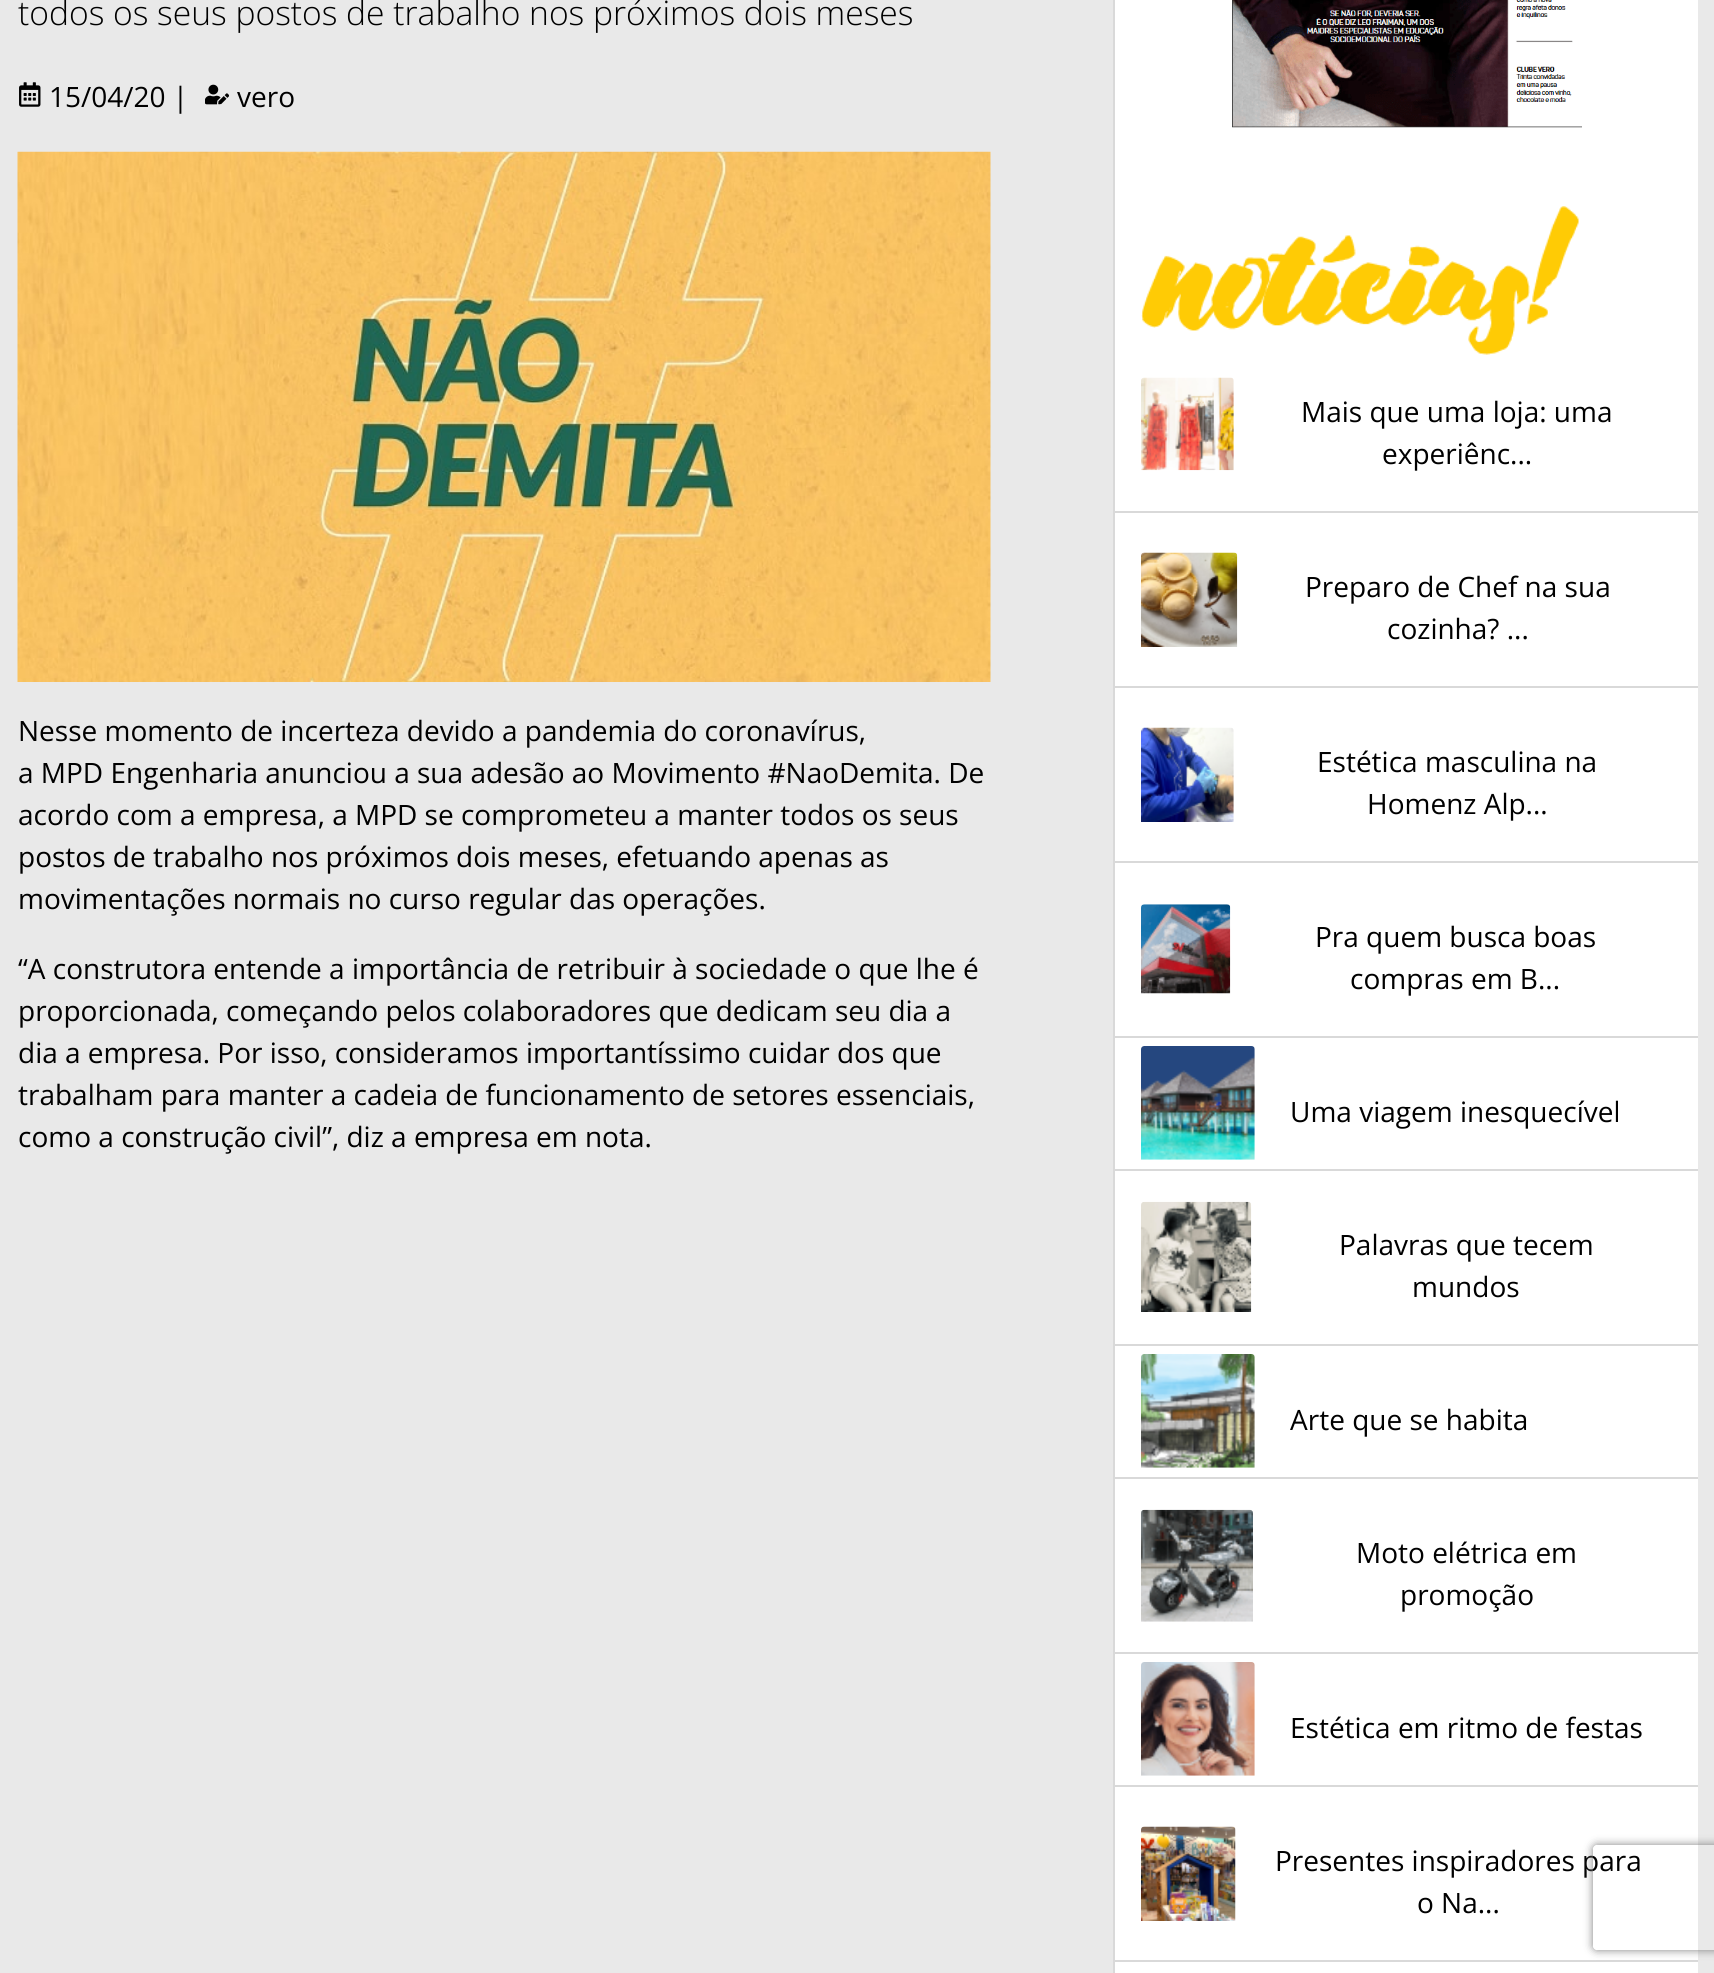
#include <cairo.h>
#include <math.h>
#include <stddef.h>

static cairo_t *c;
static void C(unsigned color){cairo_set_source_rgb(c, (color >> 16) / 255.0, (color >> 8 & 255) / 255.0, (color & 255) / 255.0);}
static void F(const char *family, double size, int italic, int bold){cairo_select_font_face(c, family, italic ? CAIRO_FONT_SLANT_ITALIC : CAIRO_FONT_SLANT_NORMAL,bold ? CAIRO_FONT_WEIGHT_BOLD : CAIRO_FONT_WEIGHT_NORMAL);cairo_set_font_size(c, size);}
static void T(double x, double y, const char *s){cairo_move_to(c, x, y);cairo_show_text(c, s);}
static void R(double x, double y, double w, double h){cairo_rectangle(c, x, y, w, h);cairo_fill(c);}
static void Q(double x, double y, double w, double h, double r){cairo_new_sub_path(c);cairo_arc(c, x + w - r, y + h - r, r, 0, M_PI / 2);cairo_arc(c, x + r, y + h - r, r, M_PI / 2, M_PI);cairo_arc(c, x + r, y + r, r, M_PI, 1.5 * M_PI);cairo_arc(c, x + w - r, y + r, r, 1.5 * M_PI, 2 * M_PI);cairo_close_path(c);}
static void S(double x, double y, double w, double h, double r, double blur, double alpha){cairo_push_group_with_content(c, CAIRO_CONTENT_ALPHA);cairo_set_operator(c, CAIRO_OPERATOR_SOURCE);for (int i = 15; i >= -15 && fmin(w, h) + blur * i / 3 > 0; i -= 2) {double e = blur * i / 6;cairo_set_source_rgba(c, 0, 0, 0, alpha * erfc((i - 1) / 8.5) / 2);Q(x - e, y - e, w + 2 * e, h + 2 * e, fmax(0, fmin(r + e + blur * .6, fmin(w, h) / 2 + e)));cairo_fill(c);}cairo_pattern_t *soft = cairo_pop_group(c);cairo_mask(c, soft);cairo_pattern_destroy(soft);}
static void I(const char *path, double x, double y, double w, double h){cairo_surface_t *image = cairo_image_surface_create_from_png(path);cairo_save(c);cairo_set_source_surface(c, image, x, y);cairo_rectangle(c, x, y, w, h);cairo_fill(c);cairo_restore(c);cairo_surface_destroy(image);}
int main(void) {
cairo_surface_t *surface = cairo_image_surface_create(CAIRO_FORMAT_RGB24, 1714, 1973);
c = cairo_create(surface);
cairo_font_options_t *options = cairo_font_options_create();
cairo_font_options_set_hint_metrics(options, CAIRO_HINT_METRICS_OFF);
cairo_font_options_set_hint_style(options, CAIRO_HINT_STYLE_NONE);
cairo_set_font_options(c, options);
cairo_set_miter_limit(c, 4);
C(0xe9e9e9);
cairo_paint(c);
F("Open Sans Light",33.6,0,0);
C(0x000000);
T(18,25,"todos os seus postos de trabalho nos próximos dois meses");
I("1.png",19,82,22,25);
F("Open Sans",28,0,0);
T(49,107,"15/04/20 |");
I("2.png",205,84,24,21);
T(237,107,"vero");
I("3.png",17,151,974,531);
T(18,741,"Nesse momento de incerteza devido a pandemia do coronavírus,");
T(18,783,"a MPD Engenharia anunciou a sua adesão ao Movimento #NaoDemita. De");
T(18,825,"acordo com a empresa, a MPD se comprometeu a manter todos os seus");
T(18,867,"postos de trabalho nos próximos dois meses, efetuando apenas as");
T(18,909,"movimentações normais no curso regular das operações.");
T(18,979,"“A construtora entende a importância de retribuir à sociedade o que lhe é");
T(18,1021,"proporcionada, começando pelos colaboradores que dedicam seu dia a");
T(18,1063,"dia a empresa. Por isso, consideramos importantíssimo cuidar dos que");
T(18,1105,"trabalham para manter a cadeia de funcionamento de setores essenciais,");
T(18,1147,"como a construção civil”, diz a empresa em nota.");
C(0xffffff);
R(1115,0,583,1973);
C(0xd9d9d9);
R(1113,0,2,1973);
I("4.png",1232,0,350,128);
I("5.png",1141,206,438,149);
R(1115,511,583,2);
I("6.png",1141,377,93,94);
C(0x000000);
T(1301,422,"Mais que uma loja: uma");
T(1382,464,"experiênc...");
C(0xd9d9d9);
R(1115,686,583,2);
I("7.png",1141,552,97,95);
C(0x000000);
T(1305,597,"Preparo de Chef na sua");
T(1387,639,"cozinha? ...");
C(0xd9d9d9);
R(1115,861,583,2);
I("8.png",1141,727,93,95);
C(0x000000);
T(1317,772,"Estética masculina na");
T(1367,814,"Homenz Alp...");
C(0xd9d9d9);
R(1115,1036,583,2);
I("9.png",1141,904,90,90);
C(0x000000);
T(1315,947,"Pra quem busca boas");
T(1350,989,"compras em B...");
C(0xd9d9d9);
R(1115,1169,583,2);
I("10.png",1141,1046,114,114);
C(0x000000);
T(1290,1122,"Uma viagem inesquecível");
C(0xd9d9d9);
R(1115,1344,583,2);
I("11.png",1141,1201,111,111);
C(0x000000);
T(1339,1255,"Palavras que tecem");
T(1412,1297,"mundos");
C(0xd9d9d9);
R(1115,1477,583,2);
I("12.png",1141,1354,114,114);
C(0x000000);
T(1290,1430,"Arte que se habita");
C(0xd9d9d9);
R(1115,1652,583,2);
I("13.png",1141,1509,112,113);
C(0x000000);
T(1356,1563,"Moto elétrica em");
T(1400,1605,"promoção");
C(0xd9d9d9);
R(1115,1785,583,2);
I("14.png",1141,1662,114,114);
C(0x000000);
T(1290,1738,"Estética em ritmo de festas");
C(0xd9d9d9);
R(1115,1960,583,2);
I("15.png",1141,1826,95,95);
C(0x000000);
T(1275,1871,"Presentes inspiradores para");
T(1417,1913,"o Na...");
cairo_save(c);
cairo_set_fill_rule(c,CAIRO_FILL_RULE_EVEN_ODD);
cairo_new_path(c);
cairo_move_to(c,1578,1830);
cairo_line_to(c,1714,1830);
cairo_line_to(c,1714,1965);
cairo_line_to(c,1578,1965);
cairo_close_path(c);
cairo_move_to(c,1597,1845);
cairo_line_to(c,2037,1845);
cairo_curve_to(c,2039,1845,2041,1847,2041,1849);
cairo_line_to(c,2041,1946);
cairo_curve_to(c,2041,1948,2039,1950,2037,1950);
cairo_line_to(c,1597,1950);
cairo_curve_to(c,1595,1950,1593,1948,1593,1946);
cairo_line_to(c,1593,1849);
cairo_curve_to(c,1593,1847,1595,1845,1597,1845);
cairo_close_path(c);
cairo_clip(c);
C(0x808080);
S(1593,1845,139,105,4,4.5,1);
cairo_restore(c);
cairo_surface_write_to_png(surface, "o.png");
cairo_font_options_destroy(options);
cairo_destroy(c);
cairo_surface_destroy(surface);
return 0;
}
